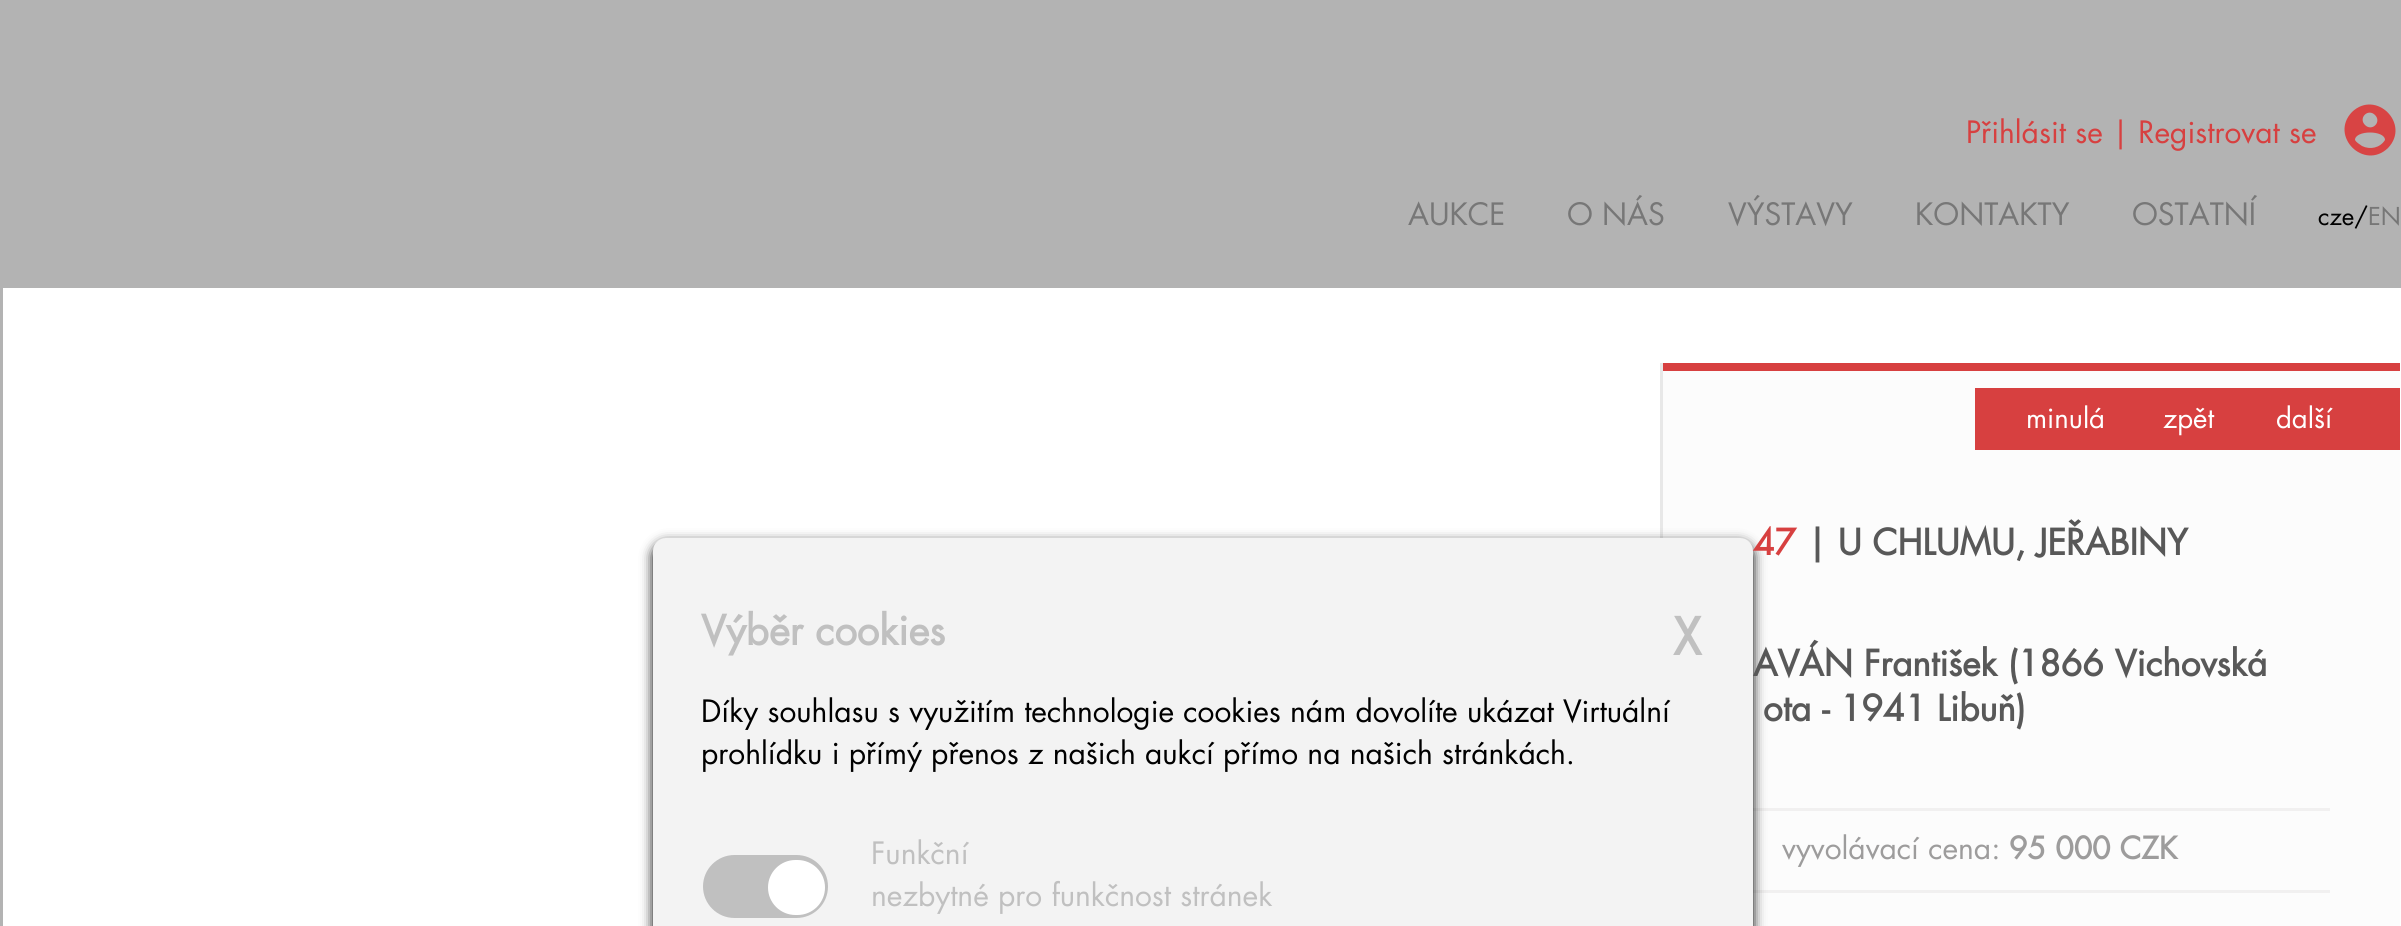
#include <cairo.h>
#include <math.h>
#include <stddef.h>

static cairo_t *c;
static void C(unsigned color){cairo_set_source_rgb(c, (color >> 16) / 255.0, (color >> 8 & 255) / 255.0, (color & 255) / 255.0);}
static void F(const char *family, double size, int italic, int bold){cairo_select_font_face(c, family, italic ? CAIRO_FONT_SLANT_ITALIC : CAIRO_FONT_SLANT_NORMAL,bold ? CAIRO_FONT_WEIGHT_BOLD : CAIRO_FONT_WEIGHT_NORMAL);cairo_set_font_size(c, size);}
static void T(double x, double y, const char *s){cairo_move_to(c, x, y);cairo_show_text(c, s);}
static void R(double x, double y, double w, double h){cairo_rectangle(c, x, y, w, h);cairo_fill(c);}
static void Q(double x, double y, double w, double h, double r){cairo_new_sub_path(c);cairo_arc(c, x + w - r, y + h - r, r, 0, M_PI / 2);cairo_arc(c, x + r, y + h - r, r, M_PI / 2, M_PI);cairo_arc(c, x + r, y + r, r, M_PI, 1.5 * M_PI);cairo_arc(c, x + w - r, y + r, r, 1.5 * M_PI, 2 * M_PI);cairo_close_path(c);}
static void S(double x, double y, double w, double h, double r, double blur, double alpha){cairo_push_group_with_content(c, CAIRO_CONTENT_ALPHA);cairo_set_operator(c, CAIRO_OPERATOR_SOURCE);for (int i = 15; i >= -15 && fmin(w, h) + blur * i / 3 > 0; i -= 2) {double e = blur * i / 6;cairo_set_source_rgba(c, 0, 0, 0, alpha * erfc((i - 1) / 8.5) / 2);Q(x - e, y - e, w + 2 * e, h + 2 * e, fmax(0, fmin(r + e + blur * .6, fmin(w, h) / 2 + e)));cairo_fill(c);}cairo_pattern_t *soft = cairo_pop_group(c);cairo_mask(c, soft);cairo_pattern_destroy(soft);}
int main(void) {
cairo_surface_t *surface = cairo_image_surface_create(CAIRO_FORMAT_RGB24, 2401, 926);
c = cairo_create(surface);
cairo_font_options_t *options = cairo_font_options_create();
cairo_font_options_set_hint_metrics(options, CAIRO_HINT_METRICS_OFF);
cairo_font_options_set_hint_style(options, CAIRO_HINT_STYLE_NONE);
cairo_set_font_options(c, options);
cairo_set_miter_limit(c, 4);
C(0xb3b3b3);
cairo_paint(c);
F("Futura",30,0,0);
C(0xd74040);
T(1966,143,"Přihlásit se | Registrovat se");
C(0xd84444);
cairo_new_path(c);
cairo_move_to(c,2362,146);
cairo_curve_to(c,2370,150,2380,148,2385,140);
cairo_curve_to(c,2385,130,2355,130,2355,140);
cairo_curve_to(c,2356,142,2359,144,2362,146);
cairo_close_path(c);
cairo_move_to(c,2375,115);
cairo_curve_to(c,2368,108,2358,118,2365,125);
cairo_curve_to(c,2372,132,2382,122,2375,115);
cairo_close_path(c);
cairo_move_to(c,2352,112);
cairo_curve_to(c,2376,89,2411,124,2388,148);
cairo_curve_to(c,2364,171,2329,136,2352,112);
cairo_close_path(c);
cairo_fill(c);
C(0x777777);
T(1408,225,"AUKCE");
T(1567,225,"O NÁS");
T(1728,225,"VÝSTAVY");
T(1915,225,"KONTAKTY");
T(2132,225,"OSTATNÍ");
F("Futura",24,0,0);
C(0x000000);
T(2318,225,"cze/");
C(0x777777);
T(2368,225,"EN");
C(0xffffff);
R(3,288,2398,638);
C(0xfcfcfc);
R(1663,371,737,555);
C(0xe8e8e8);
R(1660,363,3,175);
C(0xf1f0f0);
R(1753,808,577,3);
R(1753,890,577,3);
C(0x000000);
S(653,543,1100,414,13,6,1);
C(0xf3f3f3);
Q(653,538,1100,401,13);
cairo_fill(c);
F("Futura",40,0,1);
C(0xc0c0c0);
T(701,645,"Výběr cookies");
F("Futura",50,0,1);
T(1673,655,"X");
F("Futura",30,0,0);
C(0x000000);
T(701,722,"Díky souhlasu s využitím technologie cookies nám dovolíte ukázat Virtuální");
T(701,764,"prohlídku i přímý přenos z našich aukcí přímo na našich stránkách.");
C(0xc0c0c0);
Q(703,855,125,63,31.5);
cairo_fill(c);
C(0xffffff);
Q(768,860,57,55,27.5);
cairo_fill(c);
C(0xc0c0c0);
T(871,864,"Funkční");
T(871,906,"nezbytné pro funkčnost stránek");
C(0xd74040);
R(1975,388,425,62);
F("Futura",27.5,0,0);
C(0xffffff);
T(2026,428,"minulá");
T(2163,428,"zpět");
T(2276,428,"další");
C(0xd74040);
R(1663,363,737,8);
F("Futura",35,0,1);
T(1753,555,"47");
C(0x585858);
T(1807,555,"| U CHLUMU, JEŘABINY");
T(1753,676,"AVÁN František (1866 Vichovská");
T(1763,721,"ota - 1941 Libuň)");
F("Futura",30,0,0);
C(0x9d9c9c);
T(1782,859,"vyvolávací cena:");
F("Futura",30,0,1);
T(2009,859,"95 000 CZK");
cairo_surface_write_to_png(surface, "o.png");
cairo_font_options_destroy(options);
cairo_destroy(c);
cairo_surface_destroy(surface);
return 0;
}
